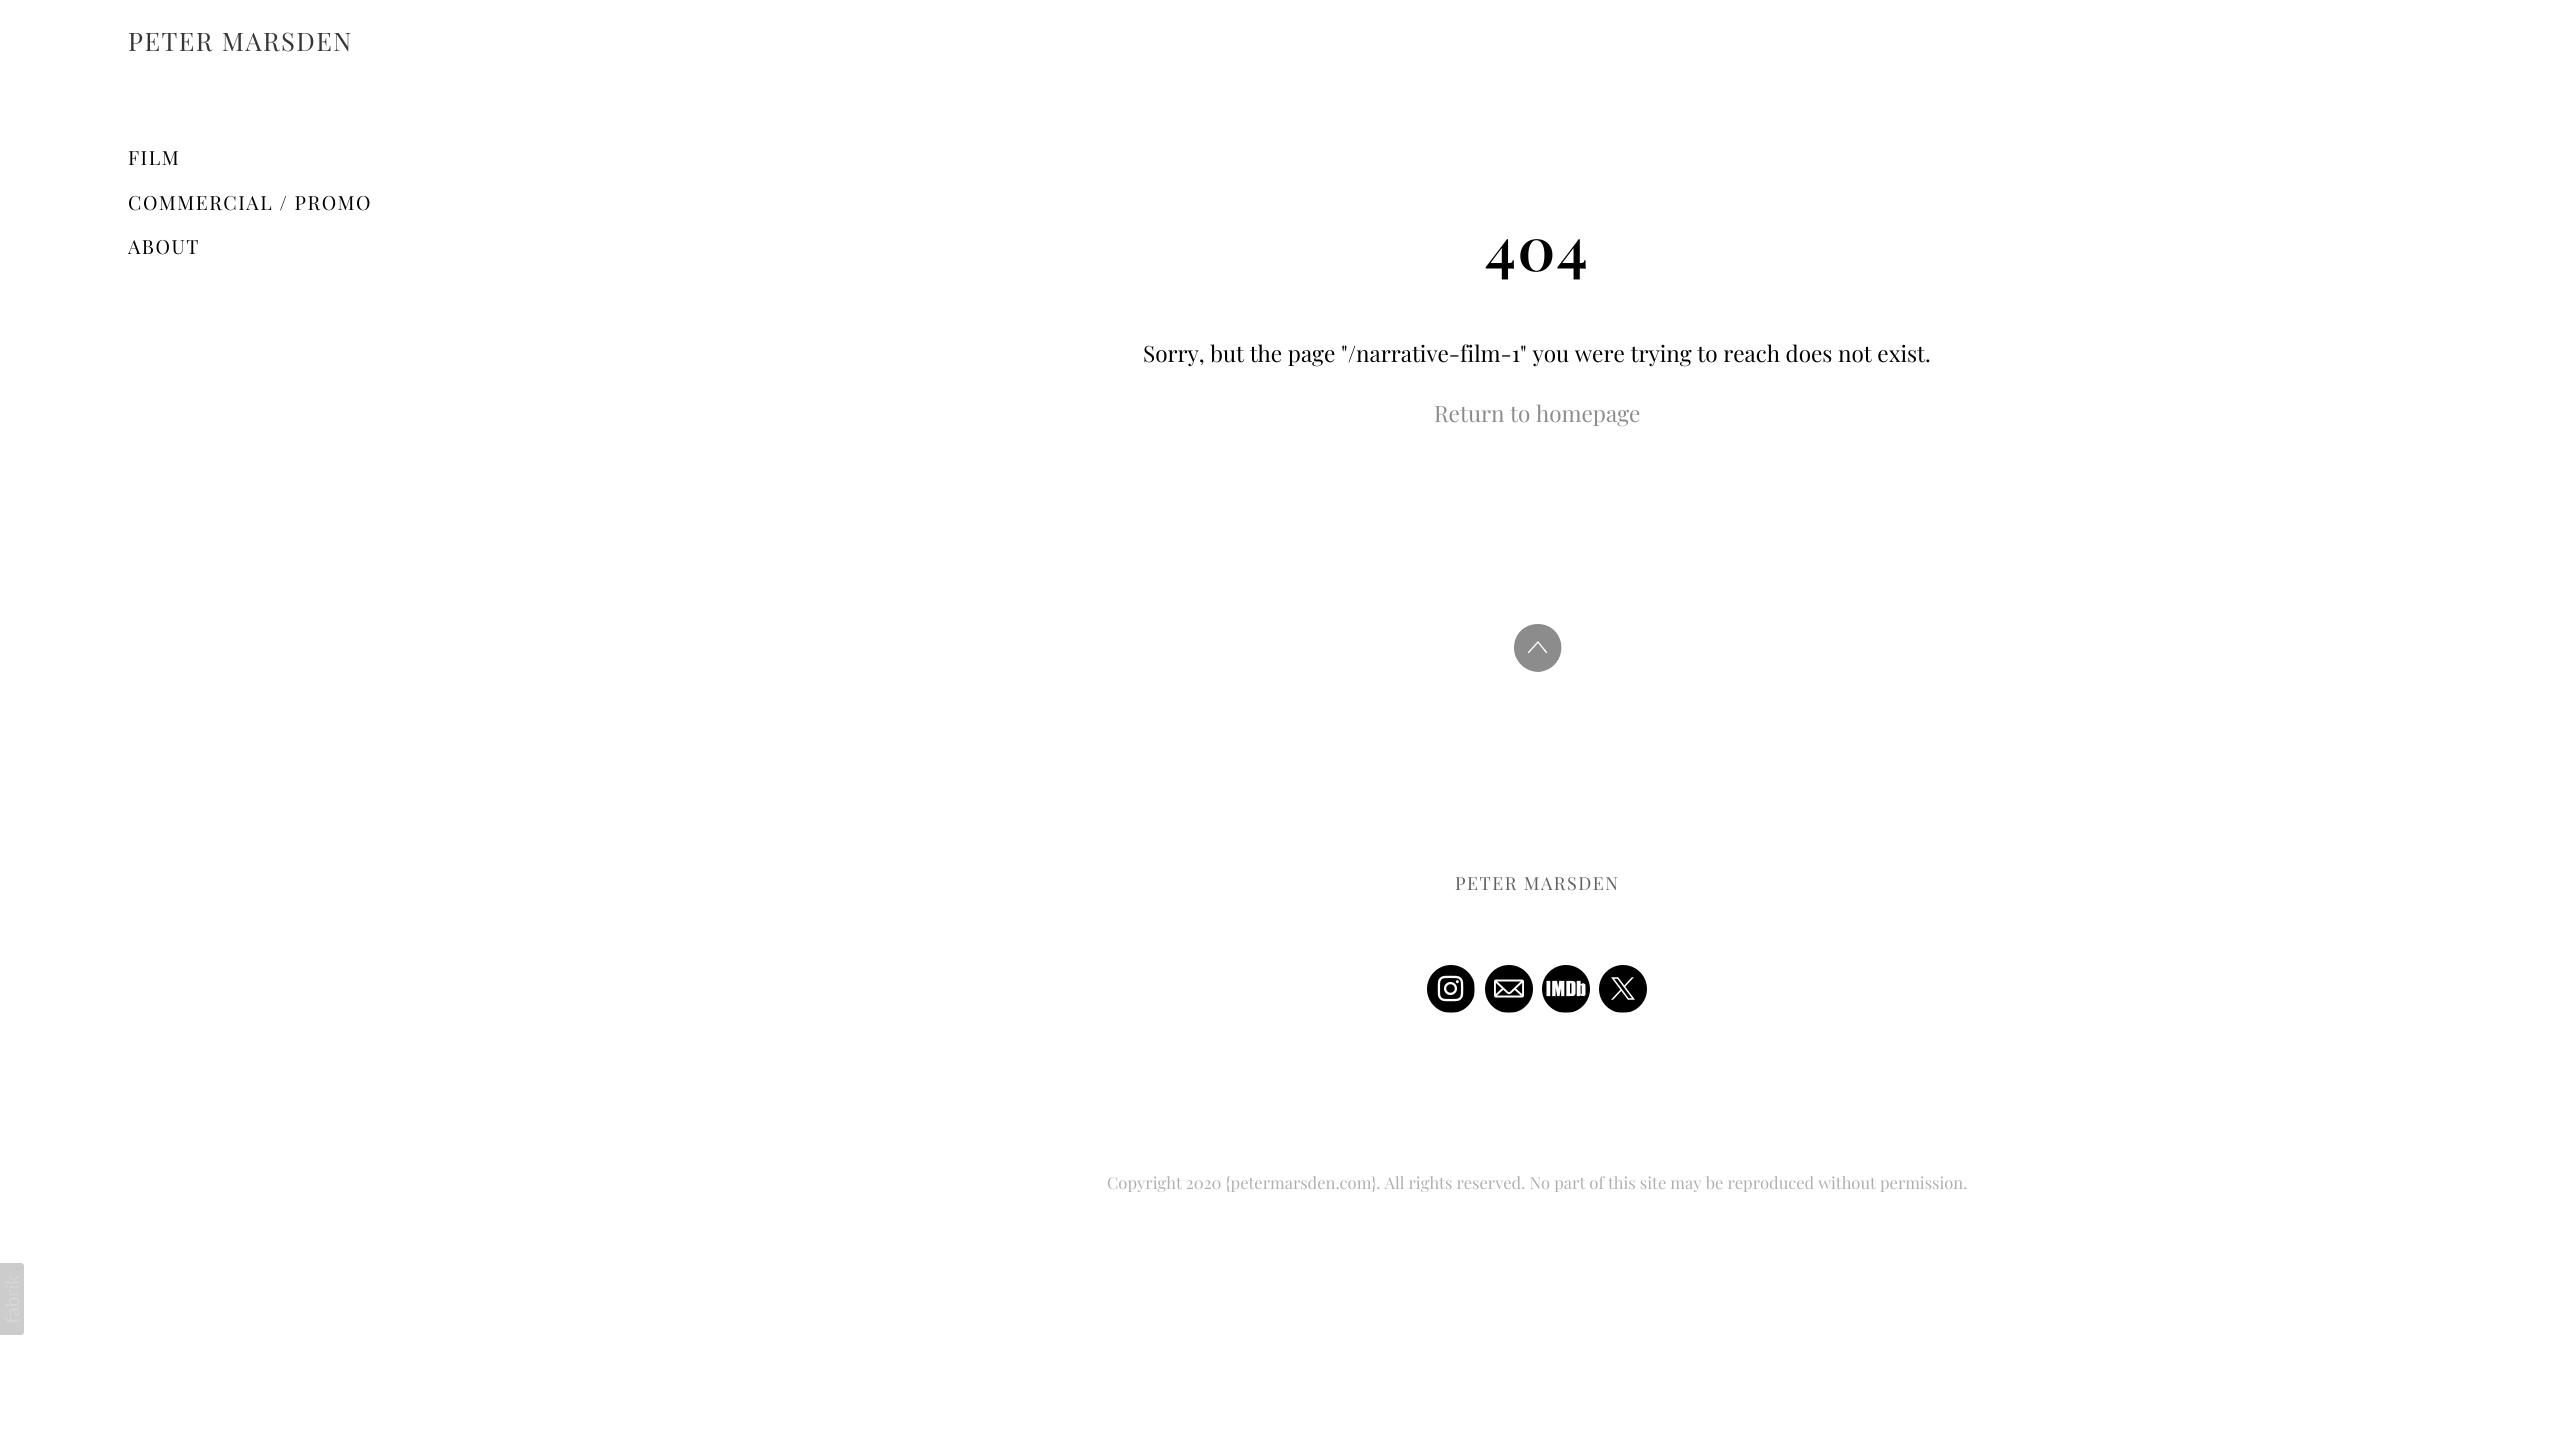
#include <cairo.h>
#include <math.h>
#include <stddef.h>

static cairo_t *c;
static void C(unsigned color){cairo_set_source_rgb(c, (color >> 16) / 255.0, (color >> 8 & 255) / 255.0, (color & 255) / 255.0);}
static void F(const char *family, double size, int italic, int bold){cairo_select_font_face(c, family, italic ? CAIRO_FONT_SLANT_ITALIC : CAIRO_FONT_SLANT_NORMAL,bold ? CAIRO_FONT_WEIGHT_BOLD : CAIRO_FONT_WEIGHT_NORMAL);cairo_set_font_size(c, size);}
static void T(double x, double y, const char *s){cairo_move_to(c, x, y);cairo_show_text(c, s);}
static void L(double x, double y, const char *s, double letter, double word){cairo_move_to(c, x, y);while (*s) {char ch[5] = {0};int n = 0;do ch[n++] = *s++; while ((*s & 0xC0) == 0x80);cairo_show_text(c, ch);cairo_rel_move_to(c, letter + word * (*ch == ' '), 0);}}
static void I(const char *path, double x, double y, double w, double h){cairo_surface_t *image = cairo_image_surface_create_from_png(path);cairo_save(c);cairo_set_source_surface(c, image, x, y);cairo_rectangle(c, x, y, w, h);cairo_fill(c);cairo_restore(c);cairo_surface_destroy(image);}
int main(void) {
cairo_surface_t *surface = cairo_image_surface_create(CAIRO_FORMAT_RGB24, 2561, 1449);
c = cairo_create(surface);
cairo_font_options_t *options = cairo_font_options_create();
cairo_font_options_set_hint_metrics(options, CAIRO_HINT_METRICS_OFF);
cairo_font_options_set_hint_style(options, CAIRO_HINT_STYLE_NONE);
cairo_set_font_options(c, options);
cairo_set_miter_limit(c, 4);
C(0xffffff);
cairo_paint(c);
F("Playfair Display",25.5,0,0);
C(0x373737);
L(128,51,"PETER MARSDEN",1.5,0);
F("Playfair Display",19.5,0,0);
C(0x000000);
L(128,165,"FILM",1.5,0);
L(128,210,"COMMERCIAL / PROMO",1.5,0);
L(128,254,"ABOUT",1.5,0);
F("Playfair Display SemiBold",60,0,0);
L(1485,271,"404",1.5,0);
F("Playfair Display",22.5,0,0);
T(1143,362,"Sorry, but the page \"/narrative-film-1\" you were trying to reach does not exist.");
C(0x8c8c8c);
T(1434,422,"Return to homepage");
cairo_new_path(c);
cairo_move_to(c,1514,648);
cairo_curve_to(c,1514,661,1525,672,1539,672);
cairo_curve_to(c,1547,671,1554,667,1558,660);
cairo_curve_to(c,1561,655,1562,649,1561,643);
cairo_curve_to(c,1555,615,1514,619,1514,648);
cairo_close_path(c);
cairo_move_to(c,1547,652);
cairo_line_to(c,1547,653);
cairo_line_to(c,1546,653);
cairo_line_to(c,1538,643);
cairo_line_to(c,1529,653);
cairo_line_to(c,1528,653);
cairo_line_to(c,1528,652);
cairo_line_to(c,1538,641);
cairo_close_path(c);
cairo_fill(c);
F("Playfair Display",18,0,0);
C(0x606060);
L(1455,890,"PETER MARSDEN",1.5,0);
I("1.png",1427,965,48,48);
I("2.png",1485,965,48,48);
I("3.png",1542,965,48,48);
I("4.png",1599,965,48,48);
F("Playfair Display",16.5,0,0);
C(0xafafaf);
T(1107,1189,"Copyright 2020 {petermarsden.com}. All rights reserved. No part of this site may be reproduced without permission.");
I("5.png",0,1263,24,72);
cairo_surface_write_to_png(surface, "o.png");
cairo_font_options_destroy(options);
cairo_destroy(c);
cairo_surface_destroy(surface);
return 0;
}
